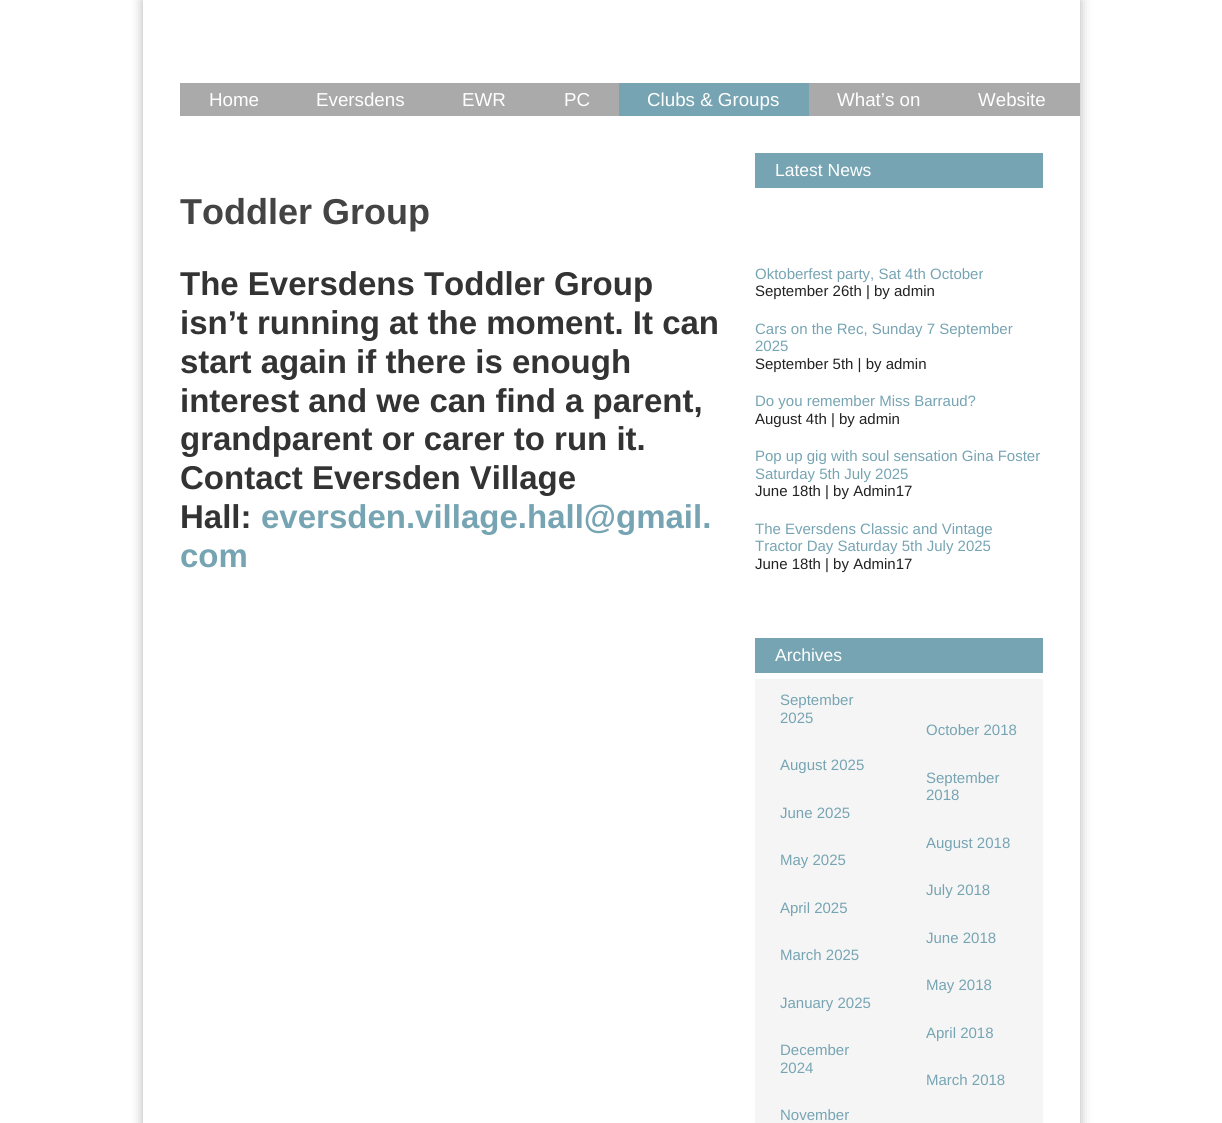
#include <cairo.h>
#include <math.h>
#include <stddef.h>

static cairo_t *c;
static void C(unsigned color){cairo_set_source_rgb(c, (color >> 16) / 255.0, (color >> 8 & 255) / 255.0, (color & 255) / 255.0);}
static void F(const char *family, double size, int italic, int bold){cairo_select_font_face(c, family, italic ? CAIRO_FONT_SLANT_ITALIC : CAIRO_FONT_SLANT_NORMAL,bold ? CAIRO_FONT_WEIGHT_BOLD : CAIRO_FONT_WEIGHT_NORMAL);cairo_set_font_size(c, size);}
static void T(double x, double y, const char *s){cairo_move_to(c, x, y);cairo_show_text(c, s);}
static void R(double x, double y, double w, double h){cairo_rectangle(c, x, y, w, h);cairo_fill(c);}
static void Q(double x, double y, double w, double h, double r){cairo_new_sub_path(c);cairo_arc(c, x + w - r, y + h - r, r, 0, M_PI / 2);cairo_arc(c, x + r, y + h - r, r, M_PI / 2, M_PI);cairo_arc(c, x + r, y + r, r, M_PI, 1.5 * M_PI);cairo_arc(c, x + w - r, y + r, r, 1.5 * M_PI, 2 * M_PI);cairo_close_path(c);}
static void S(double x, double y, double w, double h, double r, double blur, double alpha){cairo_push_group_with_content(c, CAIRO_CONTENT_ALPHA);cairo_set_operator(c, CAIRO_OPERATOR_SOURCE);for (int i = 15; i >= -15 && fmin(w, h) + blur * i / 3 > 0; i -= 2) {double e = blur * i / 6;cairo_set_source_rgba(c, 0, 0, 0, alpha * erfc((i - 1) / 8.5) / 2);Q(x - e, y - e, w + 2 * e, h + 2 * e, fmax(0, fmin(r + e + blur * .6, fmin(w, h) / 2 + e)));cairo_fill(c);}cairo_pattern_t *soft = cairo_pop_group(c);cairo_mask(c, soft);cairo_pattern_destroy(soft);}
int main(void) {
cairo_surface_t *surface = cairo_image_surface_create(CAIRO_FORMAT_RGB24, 1222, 1123);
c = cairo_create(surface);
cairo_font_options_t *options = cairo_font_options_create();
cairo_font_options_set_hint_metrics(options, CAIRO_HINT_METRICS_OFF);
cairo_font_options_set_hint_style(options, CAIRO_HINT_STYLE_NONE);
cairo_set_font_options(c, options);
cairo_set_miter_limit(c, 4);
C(0xffffff);
cairo_paint(c);
cairo_save(c);
cairo_set_fill_rule(c,CAIRO_FILL_RULE_EVEN_ODD);
cairo_new_path(c);
cairo_move_to(c,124,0);
cairo_line_to(c,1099,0);
cairo_line_to(c,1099,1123);
cairo_line_to(c,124,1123);
cairo_close_path(c);
cairo_move_to(c,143,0);
cairo_line_to(c,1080,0);
cairo_line_to(c,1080,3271);
cairo_line_to(c,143,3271);
cairo_close_path(c);
cairo_clip(c);
C(0x000000);
S(143,0,937,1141,0,6,.3);
cairo_restore(c);
C(0xaaaaaa);
R(180,83,900,33);
F("Liberation Sans",18.75,0,0);
C(0xffffff);
T(209,106,"Home");
T(316,106,"Eversdens");
T(462,106,"EWR");
T(564,106,"PC");
C(0x76a4b3);
R(619,83,190,33);
C(0xffffff);
T(647,106,"Clubs & Groups");
T(837,106,"What’s on");
T(978,106,"Website");
F("Liberation Sans",36,0,1);
C(0x444444);
T(180,224,"Toddler Group");
F("Liberation Sans",33,0,1);
C(0x333333);
T(180,295,"The Eversdens Toddler Group");
T(180,334,"isn’t running at the moment. It can");
T(180,373,"start again if there is enough");
T(180,412,"interest and we can find a parent,");
T(180,450,"grandparent or carer to run it.");
T(180,489,"Contact Eversden Village");
T(180,528,"Hall:");
C(0x76a4b3);
T(261,528,"eversden.village.hall@gmail.");
T(180,567,"com");
R(755,153,288,35);
F("Liberation Sans",17.5,0,0);
C(0xffffff);
T(775,176,"Latest News");
F("Liberation Sans",15,0,0);
C(0x76a4b3);
T(755,279,"Oktoberfest party, Sat 4th October");
C(0x222222);
T(755,296,"September 26th | by admin");
C(0x76a4b3);
T(755,334,"Cars on the Rec, Sunday 7 September");
T(755,351,"2025");
C(0x222222);
T(755,369,"September 5th | by admin");
C(0x76a4b3);
T(755,406,"Do you remember Miss Barraud?");
C(0x222222);
T(755,424,"August 4th | by admin");
C(0x76a4b3);
T(755,461,"Pop up gig with soul sensation Gina Foster");
T(755,479,"Saturday 5th July 2025");
C(0x222222);
T(755,496,"June 18th | by Admin17");
C(0x76a4b3);
T(755,534,"The Eversdens Classic and Vintage");
T(755,551,"Tractor Day Saturday 5th July 2025");
C(0x222222);
T(755,569,"June 18th | by Admin17");
C(0x76a4b3);
R(755,638,288,35);
F("Liberation Sans",17.5,0,0);
C(0xffffff);
T(775,661,"Archives");
C(0xf5f5f5);
R(755,679,288,444);
F("Liberation Sans",15,0,0);
C(0x76a4b3);
T(780,705,"September");
T(780,723,"2025");
T(926,735,"October 2018");
T(780,770,"August 2025");
T(926,783,"September");
T(926,800,"2018");
T(780,818,"June 2025");
T(926,848,"August 2018");
T(780,865,"May 2025");
T(926,895,"July 2018");
T(780,913,"April 2025");
T(926,943,"June 2018");
T(780,960,"March 2025");
T(926,990,"May 2018");
T(780,1008,"January 2025");
T(926,1038,"April 2018");
T(780,1055,"December");
T(780,1073,"2024");
T(926,1085,"March 2018");
T(780,1120,"November");
cairo_surface_write_to_png(surface, "o.png");
cairo_font_options_destroy(options);
cairo_destroy(c);
cairo_surface_destroy(surface);
return 0;
}
